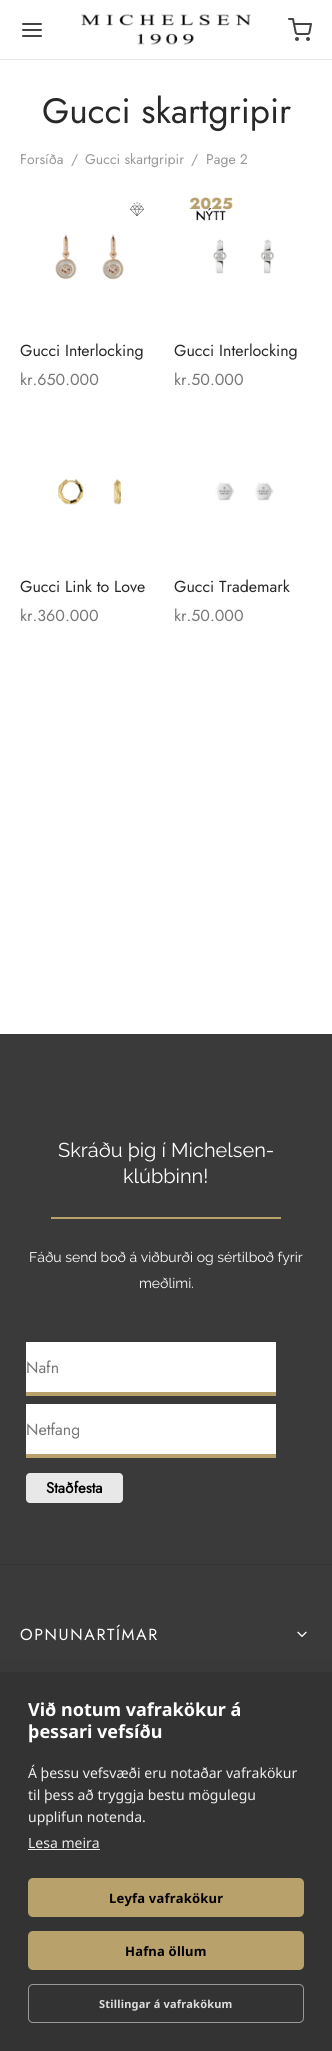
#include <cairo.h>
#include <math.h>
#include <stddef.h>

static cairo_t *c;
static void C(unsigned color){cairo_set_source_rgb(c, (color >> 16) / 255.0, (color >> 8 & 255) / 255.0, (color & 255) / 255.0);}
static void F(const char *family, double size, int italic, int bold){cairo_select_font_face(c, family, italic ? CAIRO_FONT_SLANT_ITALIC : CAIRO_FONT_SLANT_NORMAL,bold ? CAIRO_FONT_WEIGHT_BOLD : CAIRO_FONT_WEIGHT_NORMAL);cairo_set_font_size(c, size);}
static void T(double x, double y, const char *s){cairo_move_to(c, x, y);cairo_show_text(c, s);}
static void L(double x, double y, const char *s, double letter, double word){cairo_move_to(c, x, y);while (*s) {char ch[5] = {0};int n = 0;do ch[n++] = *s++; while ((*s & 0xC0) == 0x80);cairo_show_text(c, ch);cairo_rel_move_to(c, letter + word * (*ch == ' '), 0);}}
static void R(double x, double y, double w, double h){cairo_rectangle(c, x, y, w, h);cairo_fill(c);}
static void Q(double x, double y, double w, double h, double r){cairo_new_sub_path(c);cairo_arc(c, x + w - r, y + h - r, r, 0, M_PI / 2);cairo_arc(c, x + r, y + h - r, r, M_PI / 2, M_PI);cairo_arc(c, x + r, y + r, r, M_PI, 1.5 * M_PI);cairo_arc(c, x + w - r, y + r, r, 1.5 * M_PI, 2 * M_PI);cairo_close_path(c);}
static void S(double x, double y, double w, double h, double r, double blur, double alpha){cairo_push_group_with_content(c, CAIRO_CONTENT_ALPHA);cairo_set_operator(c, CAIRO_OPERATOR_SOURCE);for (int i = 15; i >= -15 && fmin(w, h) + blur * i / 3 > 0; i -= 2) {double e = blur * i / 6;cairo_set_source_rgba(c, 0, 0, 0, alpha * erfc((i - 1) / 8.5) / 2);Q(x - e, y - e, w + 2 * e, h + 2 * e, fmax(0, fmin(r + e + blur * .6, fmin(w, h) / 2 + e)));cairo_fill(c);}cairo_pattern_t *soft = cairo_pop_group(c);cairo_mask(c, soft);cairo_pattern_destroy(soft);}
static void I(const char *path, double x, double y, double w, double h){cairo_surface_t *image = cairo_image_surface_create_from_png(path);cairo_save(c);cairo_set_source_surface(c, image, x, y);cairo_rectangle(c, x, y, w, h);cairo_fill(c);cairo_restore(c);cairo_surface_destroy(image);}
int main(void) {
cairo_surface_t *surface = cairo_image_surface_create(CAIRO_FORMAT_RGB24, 332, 2051);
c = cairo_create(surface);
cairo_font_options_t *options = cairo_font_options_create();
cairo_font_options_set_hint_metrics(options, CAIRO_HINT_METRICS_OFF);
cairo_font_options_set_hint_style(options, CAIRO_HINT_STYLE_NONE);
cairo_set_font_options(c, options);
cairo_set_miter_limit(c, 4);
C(0xffffff);
cairo_paint(c);
cairo_new_path(c);
cairo_move_to(c,23,30);
cairo_line_to(c,41,30);
cairo_move_to(c,23,24);
cairo_line_to(c,41,24);
cairo_move_to(c,23,36);
cairo_line_to(c,41,36);
C(0x444444);
cairo_set_line_cap(c,CAIRO_LINE_CAP_ROUND);
cairo_set_line_join(c,CAIRO_LINE_JOIN_ROUND);
cairo_stroke(c);
I("1.png",81,14,170,31);
I("2.png",288,18,24,23);
C(0xe6e6e6);
R(0,59,332,1);
F("Jost",35.25,0,0);
C(0x282828);
T(42,123,"Gucci skartgripir");
F("Jost",14,0,0);
C(0x999999);
T(20,164,"Forsíða");
T(71,164,"/");
T(85,164,"Gucci skartgripir");
T(191,164,"/");
T(206,164,"Page 2");
I("3.png",130,201,14,15);
I("4.png",55,234,69,46);
F("Jost",16,0,0);
C(0x282828);
T(20,356,"Gucci Interlocking");
C(0x777777);
T(20,385,"kr.650.000");
I("5.png",189,197,44,24);
I("6.png",213,239,61,35);
C(0x282828);
T(174,356,"Gucci Interlocking");
C(0x777777);
T(174,385,"kr.50.000");
I("7.png",58,478,63,27);
C(0x282828);
T(20,592,"Gucci Link to Love");
C(0x777777);
T(20,621,"kr.360.000");
I("8.png",215,482,59,19);
C(0x282828);
T(174,592,"Gucci Trademark");
C(0x777777);
T(174,621,"kr.50.000");
C(0x3a3a3a);
R(0,1034,332,638);
F("Raleway",20,0,0);
C(0xffffff);
T(58,1157,"Skráðu þig í Michelsen-");
T(123,1183,"klúbbinn!");
C(0xb9a16b);
R(51,1217,230,2);
F("Raleway",14,0,0);
C(0xffffff);
T(29,1262,"Fáðu send boð á viðburði og sértilboð fyrir");
T(139,1288,"meðlimi.");
R(26,1342,250,50);
C(0xb9a16b);
R(26,1392,250,4);
F("Jost",16,0,0);
C(0x777777);
T(26,1373,"Nafn");
C(0xffffff);
R(26,1404,250,50);
C(0xb9a16b);
R(26,1454,250,4);
C(0x777777);
T(26,1435,"Netfang");
C(0xe8e8e8);
Q(26,1473,97,30,4);
cairo_fill(c);
F("Jost",15,0,1);
C(0x000000);
T(46,1493,"Staðfesta");
C(0x343434);
R(0,1564,332,1);
F("Jost",16,0,0);
C(0xffffff);
L(20,1640,"OPNUNARTÍMAR",1.6,0);
I("9.png",297,1631,10,6);
C(0x000000);
S(0,1682,332,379,0,20,.1);
C(0x333333);
R(0,1672,332,379);
F("Noto Sans",18,0,1);
C(0xffffff);
T(28,1716,"Við notum vafrakökur á");
T(28,1738,"þessari vefsíðu");
F("Noto Sans",14,0,0);
C(0xeeeeee);
T(28,1778,"Á þessu vefsvæði eru notaðar vafrakökur");
T(28,1800,"til þess að tryggja bestu mögulegu");
T(28,1822,"upplifun notenda.");
T(28,1848,"Lesa meira");
R(28,1849,72,1);
C(0xb9a16b);
Q(28,1878,276,39,5);
cairo_fill(c);
F("Noto Sans",13,0,1);
C(0x000000);
L(109,1903,"Leyfa vafrakökur",.2,0);
C(0xb9a16b);
Q(28,1931,276,39,5);
cairo_fill(c);
C(0x000000);
L(125,1956,"Hafna öllum",.2,0);
Q(28.5,1984.5,275,38,4.5);
C(0x999999);
cairo_set_line_width(c,1);
cairo_set_line_cap(c,CAIRO_LINE_CAP_BUTT);
cairo_set_line_join(c,CAIRO_LINE_JOIN_MITER);
cairo_stroke(c);
F("Noto Sans",11,0,1);
C(0xdddddd);
L(99,2008,"Stillingar á vafrakökum",.2,0);
cairo_surface_write_to_png(surface, "o.png");
cairo_font_options_destroy(options);
cairo_destroy(c);
cairo_surface_destroy(surface);
return 0;
}
